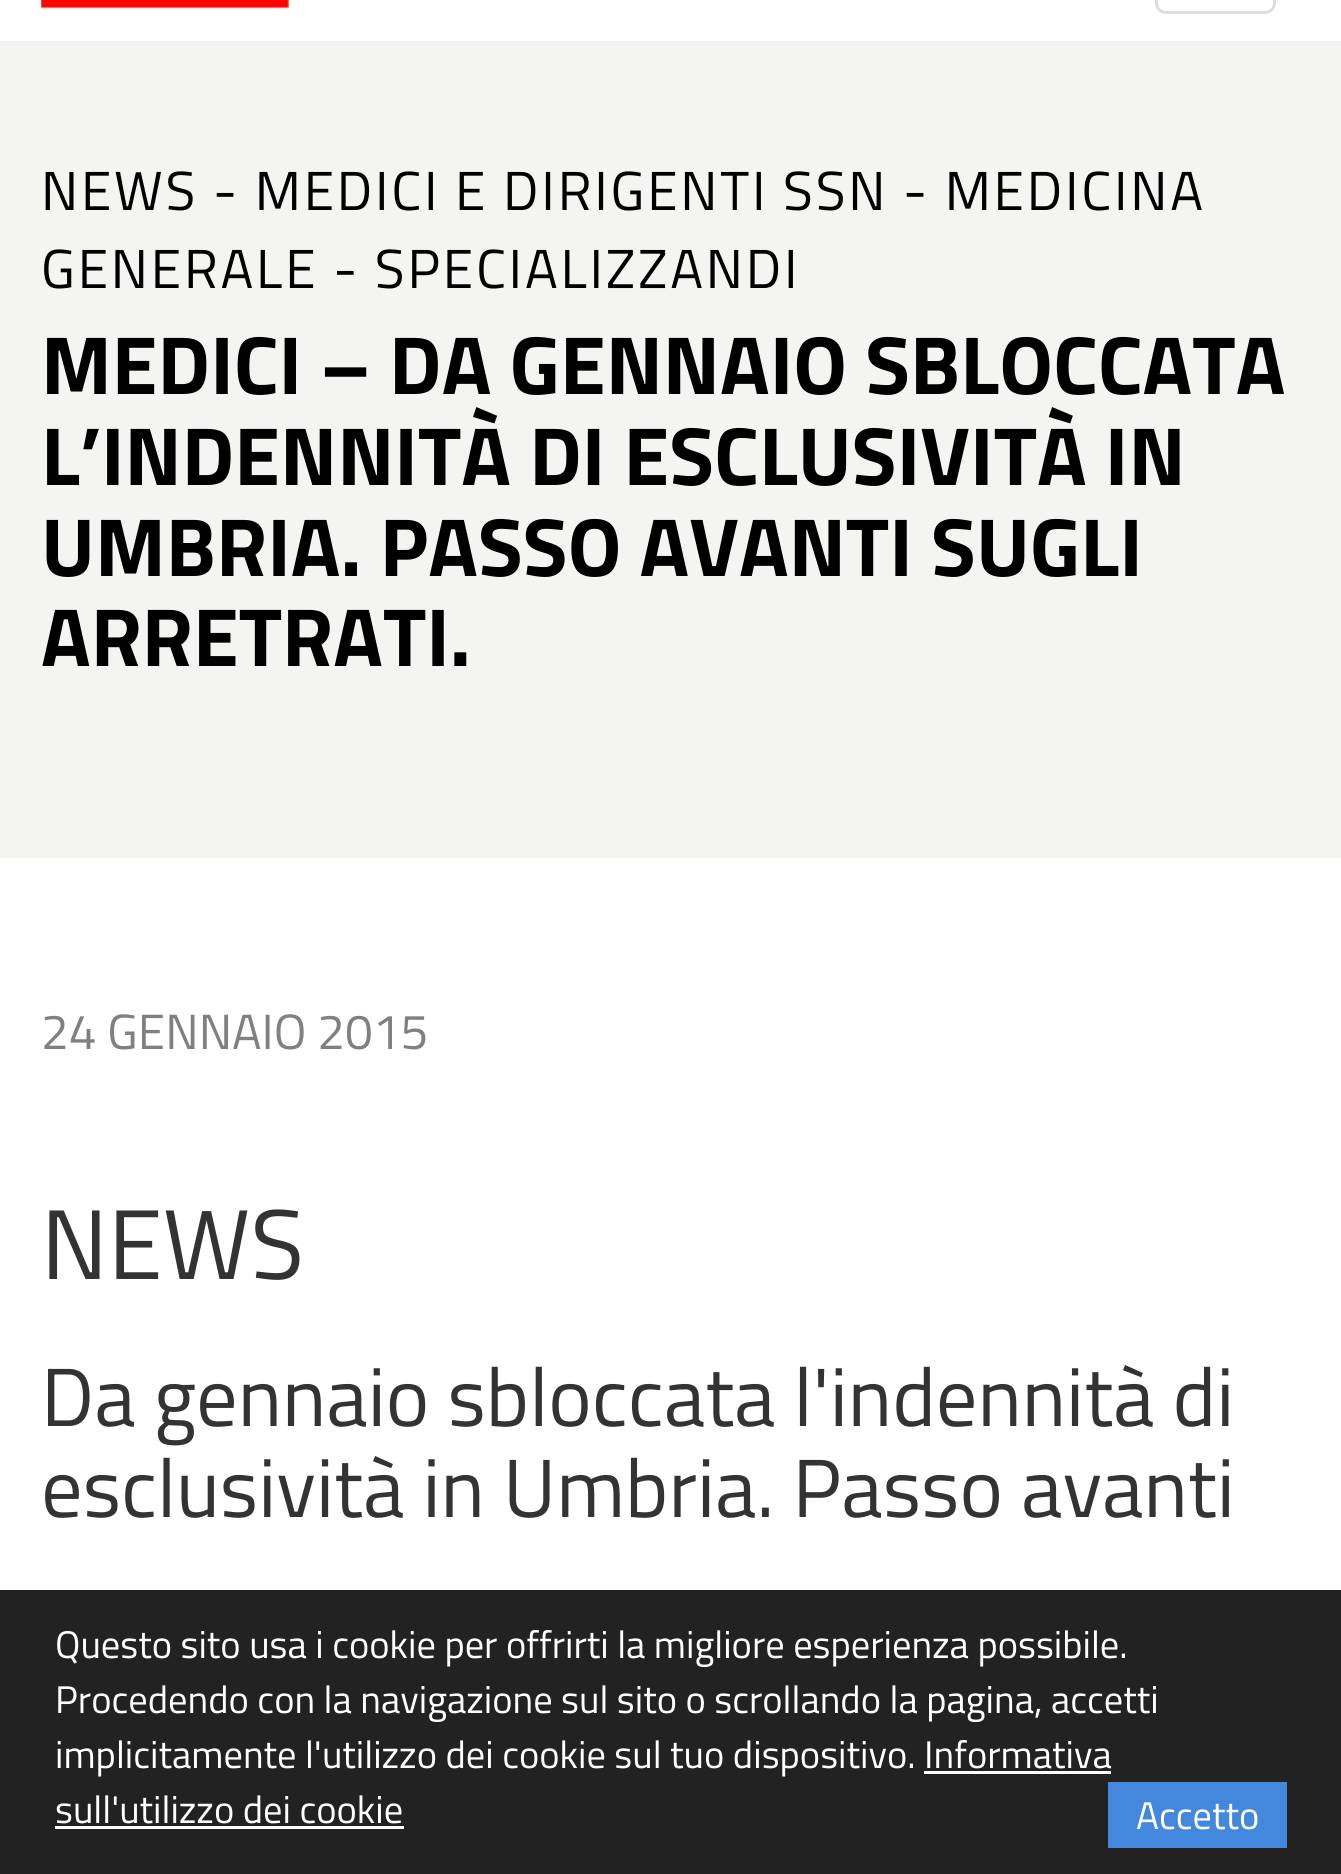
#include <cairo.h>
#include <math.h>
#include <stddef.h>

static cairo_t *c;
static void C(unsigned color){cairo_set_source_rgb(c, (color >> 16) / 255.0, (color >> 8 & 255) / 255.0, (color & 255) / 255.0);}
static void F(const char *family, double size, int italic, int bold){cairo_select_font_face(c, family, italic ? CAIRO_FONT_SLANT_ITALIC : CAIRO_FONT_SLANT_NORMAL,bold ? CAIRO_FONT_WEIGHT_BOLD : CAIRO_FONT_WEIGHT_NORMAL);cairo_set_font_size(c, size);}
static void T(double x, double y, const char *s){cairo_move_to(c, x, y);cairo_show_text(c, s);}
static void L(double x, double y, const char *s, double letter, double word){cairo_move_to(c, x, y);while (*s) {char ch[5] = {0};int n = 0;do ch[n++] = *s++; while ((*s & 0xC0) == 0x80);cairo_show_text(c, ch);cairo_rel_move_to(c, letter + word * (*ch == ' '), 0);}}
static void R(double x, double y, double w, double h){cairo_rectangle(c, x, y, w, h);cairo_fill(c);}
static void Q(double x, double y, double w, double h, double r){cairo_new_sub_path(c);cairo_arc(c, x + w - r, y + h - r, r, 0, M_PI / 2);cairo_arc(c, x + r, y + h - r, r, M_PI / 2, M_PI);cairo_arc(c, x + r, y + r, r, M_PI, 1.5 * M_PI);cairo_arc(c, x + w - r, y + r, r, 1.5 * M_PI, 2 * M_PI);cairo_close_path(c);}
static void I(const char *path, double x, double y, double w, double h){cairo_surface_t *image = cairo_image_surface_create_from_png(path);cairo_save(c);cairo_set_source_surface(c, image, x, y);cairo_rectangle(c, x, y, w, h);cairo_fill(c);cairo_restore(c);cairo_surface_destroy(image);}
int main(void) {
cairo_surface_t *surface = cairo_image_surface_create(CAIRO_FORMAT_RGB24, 1341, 1874);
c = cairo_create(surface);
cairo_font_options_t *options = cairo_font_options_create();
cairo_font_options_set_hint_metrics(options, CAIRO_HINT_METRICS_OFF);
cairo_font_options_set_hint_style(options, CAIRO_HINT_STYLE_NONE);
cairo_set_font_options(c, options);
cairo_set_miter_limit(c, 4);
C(0xffffff);
cairo_paint(c);
I("1.png",41,0,248,10);
Q(1156.5,-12.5,118,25,9.5);
C(0xdddddd);
cairo_set_line_width(c,3);
cairo_stroke(c);
C(0xf4f4f2);
R(0,41,1341,817);
F("Titillium Web",55,0,0);
C(0x000000);
L(41,210,"NEWS - MEDICI E DIRIGENTI SSN - MEDICINA",2.75,0);
L(41,288,"GENERALE - SPECIALIZZANDI",2.75,0);
F("Titillium Web",82.5,0,1);
T(41,394,"MEDICI – DA GENNAIO SBLOCCATA");
T(41,485,"L’INDENNITÀ DI ESCLUSIVITÀ IN");
T(41,576,"UMBRIA. PASSO AVANTI SUGLI");
T(41,666,"ARRETRATI.");
F("Titillium Web",49.5,0,0);
C(0x808080);
T(41,1049,"24 GENNAIO 2015");
F("Titillium Web",99,0,0);
C(0x333333);
T(41,1279,"NEWS");
F("Titillium Web",82.5,0,0);
T(41,1426,"Da gennaio sbloccata l'indennità di");
T(41,1517,"esclusività in Umbria. Passo avanti");
C(0x222222);
R(0,1590,1341,284);
F("Titillium Web",38.5,0,0);
C(0xffffff);
T(55,1658,"Questo sito usa i cookie per offrirti la migliore esperienza possibile.");
T(55,1713,"Procedendo con la navigazione sul sito o scrollando la pagina, accetti");
T(55,1768,"implicitamente l'utilizzo dei cookie sul tuo dispositivo. Informativa");
T(55,1823,"sull'utilizzo dei cookie");
R(924,1771,187,3);
R(55,1826,349,3);
C(0x4488dd);
R(1108,1782,179,66);
C(0xffffff);
T(1136,1829,"Accetto");
cairo_surface_write_to_png(surface, "o.png");
cairo_font_options_destroy(options);
cairo_destroy(c);
cairo_surface_destroy(surface);
return 0;
}
